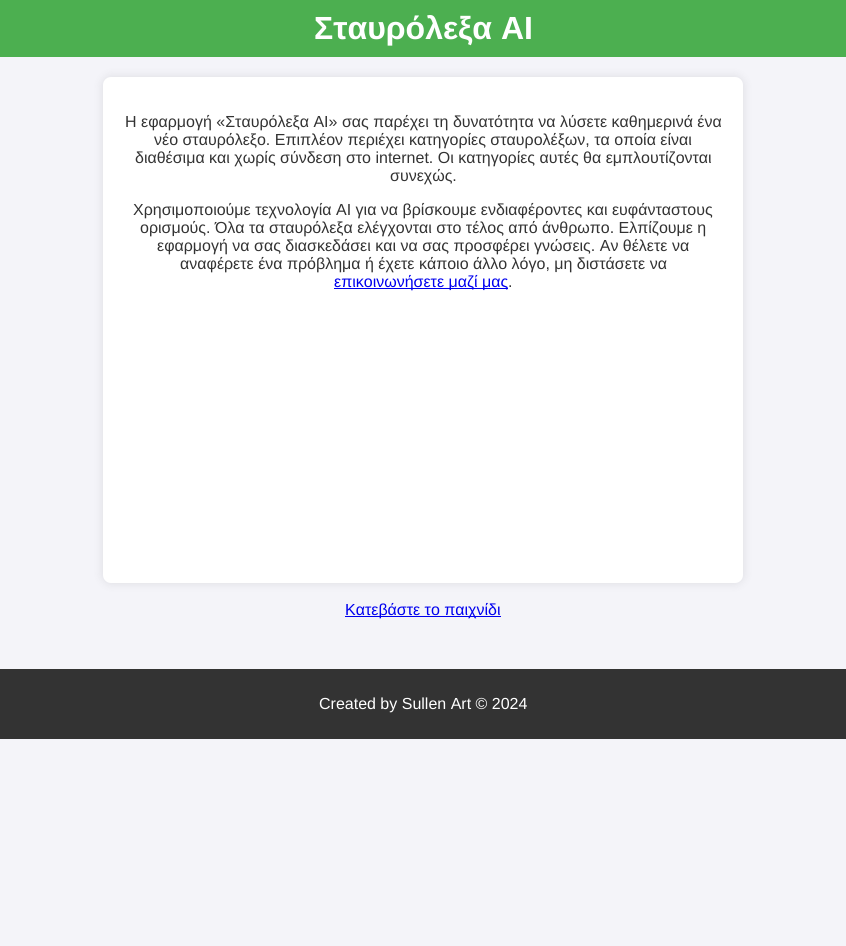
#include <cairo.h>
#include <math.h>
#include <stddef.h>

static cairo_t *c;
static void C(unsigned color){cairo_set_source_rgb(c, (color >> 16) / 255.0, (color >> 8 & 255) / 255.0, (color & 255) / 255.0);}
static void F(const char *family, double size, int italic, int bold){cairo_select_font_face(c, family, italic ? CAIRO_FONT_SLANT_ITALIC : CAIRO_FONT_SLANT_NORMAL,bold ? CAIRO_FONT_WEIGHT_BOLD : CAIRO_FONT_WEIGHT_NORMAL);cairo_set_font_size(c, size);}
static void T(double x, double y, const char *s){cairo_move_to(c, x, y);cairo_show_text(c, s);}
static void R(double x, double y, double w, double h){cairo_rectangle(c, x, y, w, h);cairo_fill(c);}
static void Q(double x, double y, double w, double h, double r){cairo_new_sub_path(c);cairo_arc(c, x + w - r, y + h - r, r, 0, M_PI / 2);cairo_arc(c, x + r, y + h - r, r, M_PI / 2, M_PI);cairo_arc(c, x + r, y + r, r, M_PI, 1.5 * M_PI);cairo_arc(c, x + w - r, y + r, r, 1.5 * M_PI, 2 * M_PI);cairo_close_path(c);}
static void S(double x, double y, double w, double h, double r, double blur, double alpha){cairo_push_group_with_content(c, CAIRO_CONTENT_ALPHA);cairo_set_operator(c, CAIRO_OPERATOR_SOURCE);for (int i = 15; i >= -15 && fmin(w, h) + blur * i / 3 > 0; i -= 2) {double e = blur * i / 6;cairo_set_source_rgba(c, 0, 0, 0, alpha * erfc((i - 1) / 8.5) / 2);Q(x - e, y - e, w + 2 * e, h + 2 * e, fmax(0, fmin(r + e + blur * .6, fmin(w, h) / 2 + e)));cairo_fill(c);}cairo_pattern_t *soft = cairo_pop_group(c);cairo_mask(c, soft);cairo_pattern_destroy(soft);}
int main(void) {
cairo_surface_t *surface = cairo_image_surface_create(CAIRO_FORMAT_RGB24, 846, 946);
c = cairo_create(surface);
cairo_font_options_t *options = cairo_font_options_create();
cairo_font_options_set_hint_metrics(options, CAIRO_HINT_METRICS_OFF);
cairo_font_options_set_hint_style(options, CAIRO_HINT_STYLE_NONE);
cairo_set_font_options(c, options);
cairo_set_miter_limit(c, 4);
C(0xf4f4f9);
cairo_paint(c);
C(0x4caf50);
R(0,0,846,57);
F("Liberation Sans",32,0,1);
C(0xffffff);
T(314,39,"Σταυρόλεξα ΑΙ");
C(0x000000);
S(103,77,640,506,8,5,.1);
C(0xffffff);
Q(103,77,640,506,8);
cairo_fill(c);
F("Liberation Sans",16,0,0);
C(0x333333);
T(125,127,"Η εφαρμογή «Σταυρόλεξα ΑΙ» σας παρέχει τη δυνατότητα να λύσετε καθημερινά ένα");
T(154,145,"νέο σταυρόλεξο. Επιπλέον περιέχει κατηγορίες σταυρολέξων, τα οποία είναι");
T(135,163,"διαθέσιμα και χωρίς σύνδεση στο internet. Οι κατηγορίες αυτές θα εμπλουτίζονται");
T(390,181,"συνεχώς.");
T(133,215,"Χρησιμοποιούμε τεχνολογία ΑΙ για να βρίσκουμε ενδιαφέροντες και ευφάνταστους");
T(140,233,"ορισμούς. Όλα τα σταυρόλεξα ελέγχονται στο τέλος από άνθρωπο. Ελπίζουμε η");
T(157,251,"εφαρμογή να σας διασκεδάσει και να σας προσφέρει γνώσεις. Αν θέλετε να");
T(180,269,"αναφέρετε ένα πρόβλημα ή έχετε κάποιο άλλο λόγο, μη διστάσετε να");
C(0x0000ee);
R(334,288,174,1);
T(334,287,"επικοινωνήσετε μαζί μας");
C(0x333333);
T(508,287,".");
C(0x0000ee);
R(345,616,156,1);
T(345,615,"Κατεβάστε το παιχνίδι");
C(0x333333);
R(0,669,846,70);
C(0xffffff);
T(319,709,"Created by Sullen Art © 2024");
cairo_surface_write_to_png(surface, "o.png");
cairo_font_options_destroy(options);
cairo_destroy(c);
cairo_surface_destroy(surface);
return 0;
}
